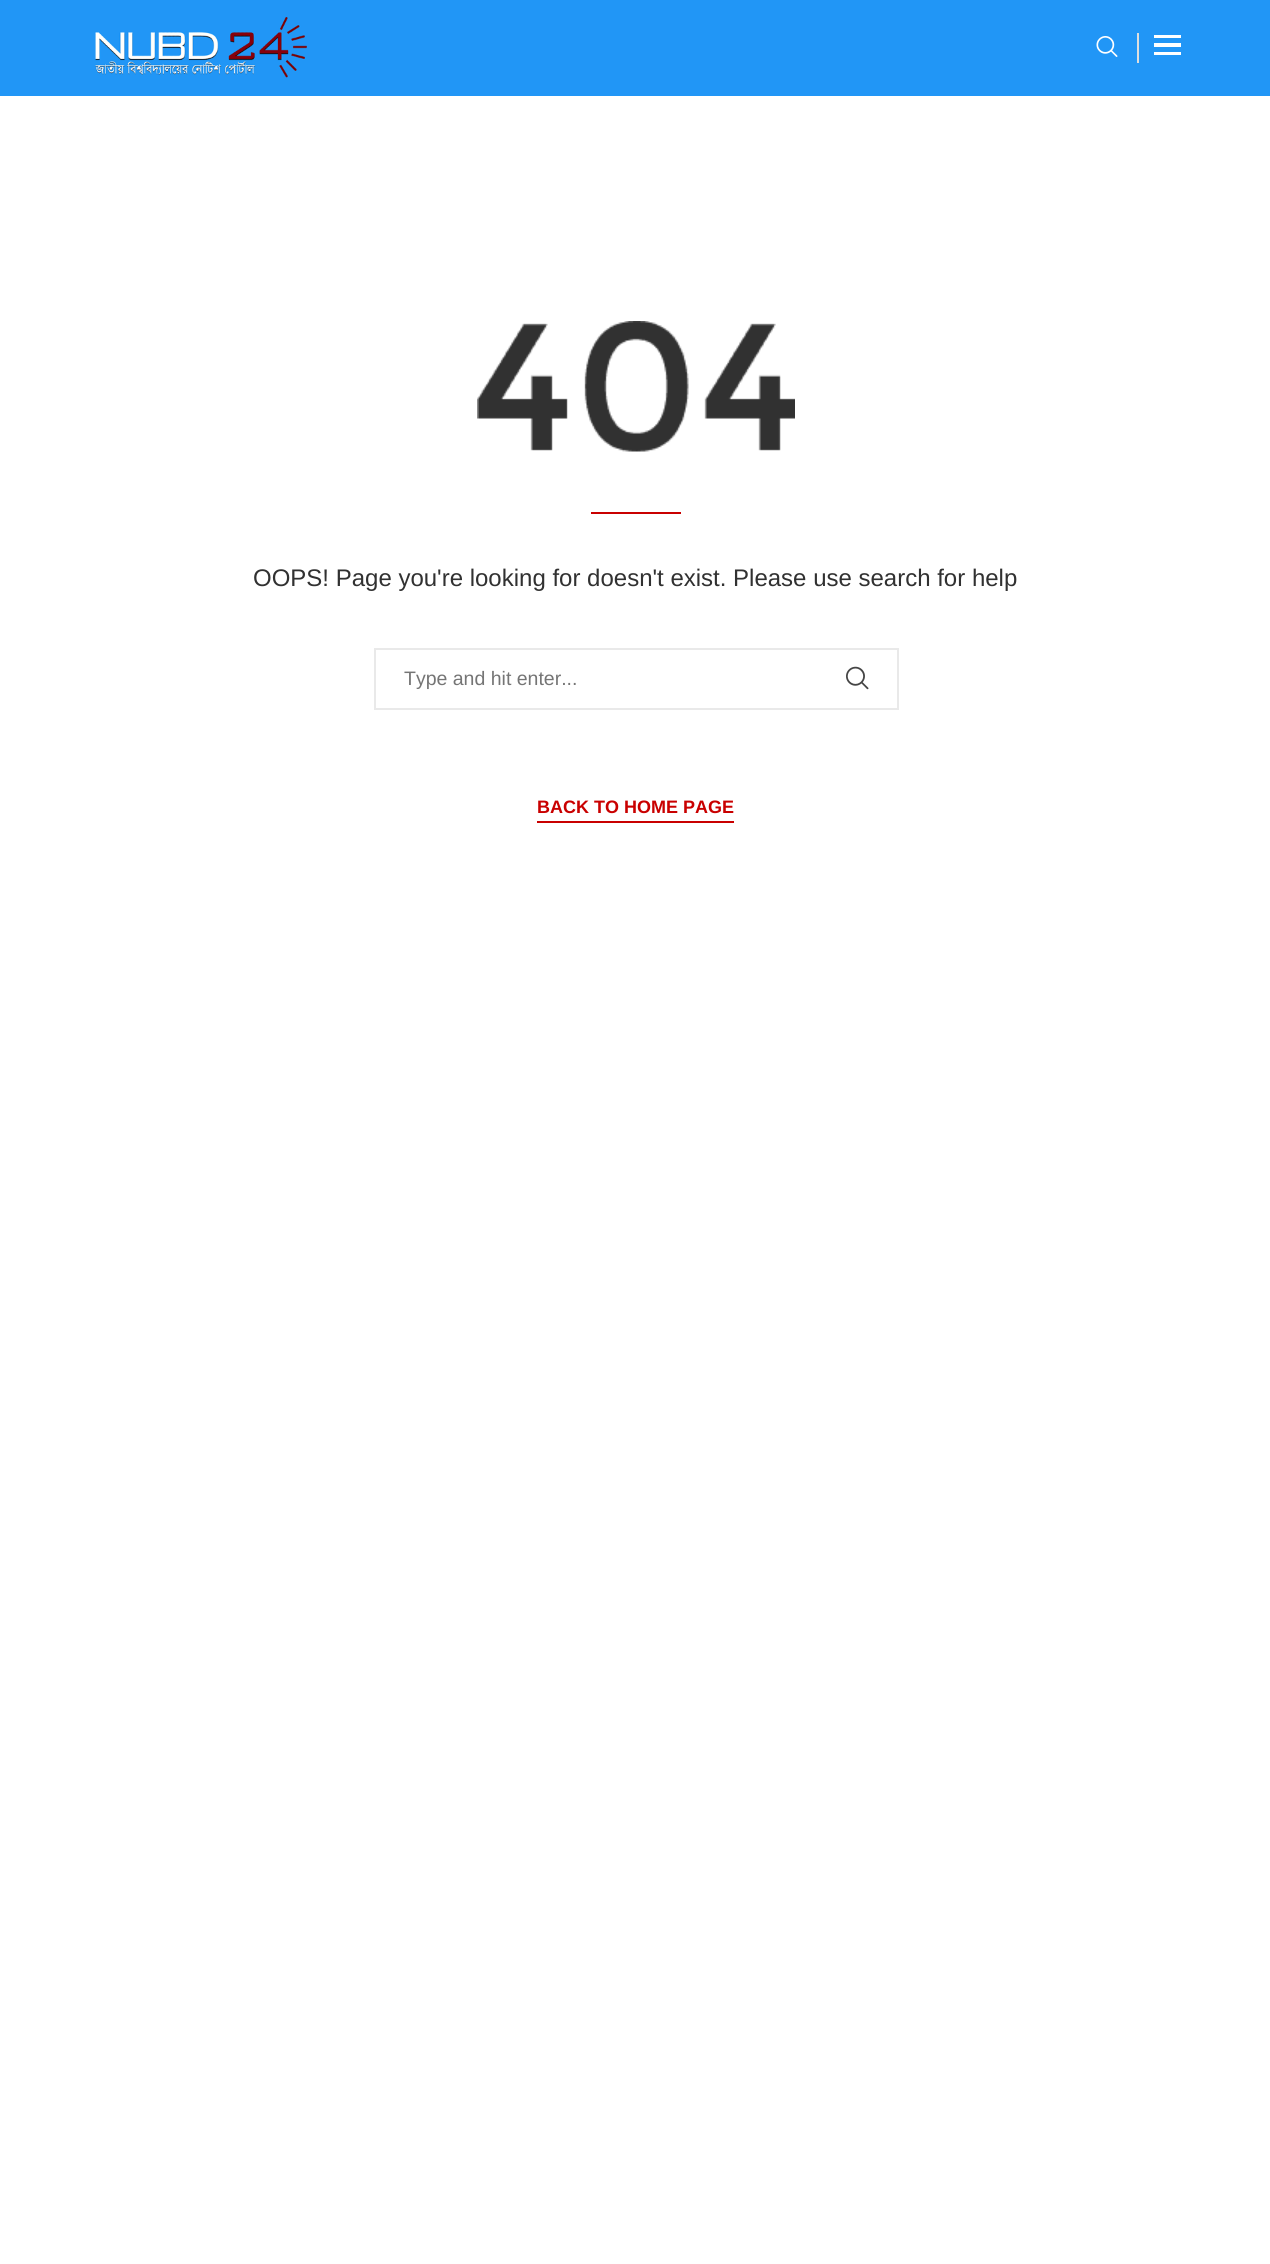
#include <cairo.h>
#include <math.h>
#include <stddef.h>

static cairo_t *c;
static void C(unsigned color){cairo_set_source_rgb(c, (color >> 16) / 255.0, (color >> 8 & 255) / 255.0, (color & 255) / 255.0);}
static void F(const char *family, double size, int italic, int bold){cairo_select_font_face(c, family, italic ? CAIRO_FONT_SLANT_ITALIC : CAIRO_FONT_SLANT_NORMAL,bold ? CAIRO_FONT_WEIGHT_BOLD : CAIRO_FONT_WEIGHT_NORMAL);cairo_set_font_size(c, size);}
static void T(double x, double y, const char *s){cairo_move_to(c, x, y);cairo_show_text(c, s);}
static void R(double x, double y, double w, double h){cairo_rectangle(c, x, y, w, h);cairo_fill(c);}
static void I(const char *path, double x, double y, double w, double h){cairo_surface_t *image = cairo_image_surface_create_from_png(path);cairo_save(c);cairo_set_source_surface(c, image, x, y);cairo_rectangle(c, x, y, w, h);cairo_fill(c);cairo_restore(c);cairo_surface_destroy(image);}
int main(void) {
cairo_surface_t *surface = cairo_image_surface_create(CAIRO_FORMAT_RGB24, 1270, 2264);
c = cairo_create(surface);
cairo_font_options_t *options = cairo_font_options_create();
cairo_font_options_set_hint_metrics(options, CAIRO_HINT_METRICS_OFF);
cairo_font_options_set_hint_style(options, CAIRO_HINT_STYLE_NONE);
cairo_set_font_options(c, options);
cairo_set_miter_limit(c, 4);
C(0xffffff);
cairo_paint(c);
C(0x2196f6);
R(0,0,1270,96);
I("1.png",95,17,212,61);
I("2.png",1096,36,22,21);
C(0xdedede);
R(1137,33,2,30);
C(0xffffff);
R(1154,35,27,3);
R(1154,43,27,4);
R(1154,52,27,3);
I("3.png",477,321,318,131);
C(0xc90000);
R(591,512,90,2);
F("Liberation Sans",24,0,0);
C(0x313131);
T(253,586,"OOPS! Page you're looking for doesn't exist. Please use search for help");
cairo_rectangle(c,375,649,523,60);
C(0xe9e9e9);
cairo_stroke(c);
F("Liberation Sans",19.5,0,0);
C(0x757575);
T(404,685,"Type and hit enter...");
I("4.png",846,666,23,24);
F("Liberation Sans",18,0,1);
C(0xc90000);
T(537,813,"BACK TO HOME PAGE");
R(537,821,197,2);
cairo_surface_write_to_png(surface, "o.png");
cairo_font_options_destroy(options);
cairo_destroy(c);
cairo_surface_destroy(surface);
return 0;
}
